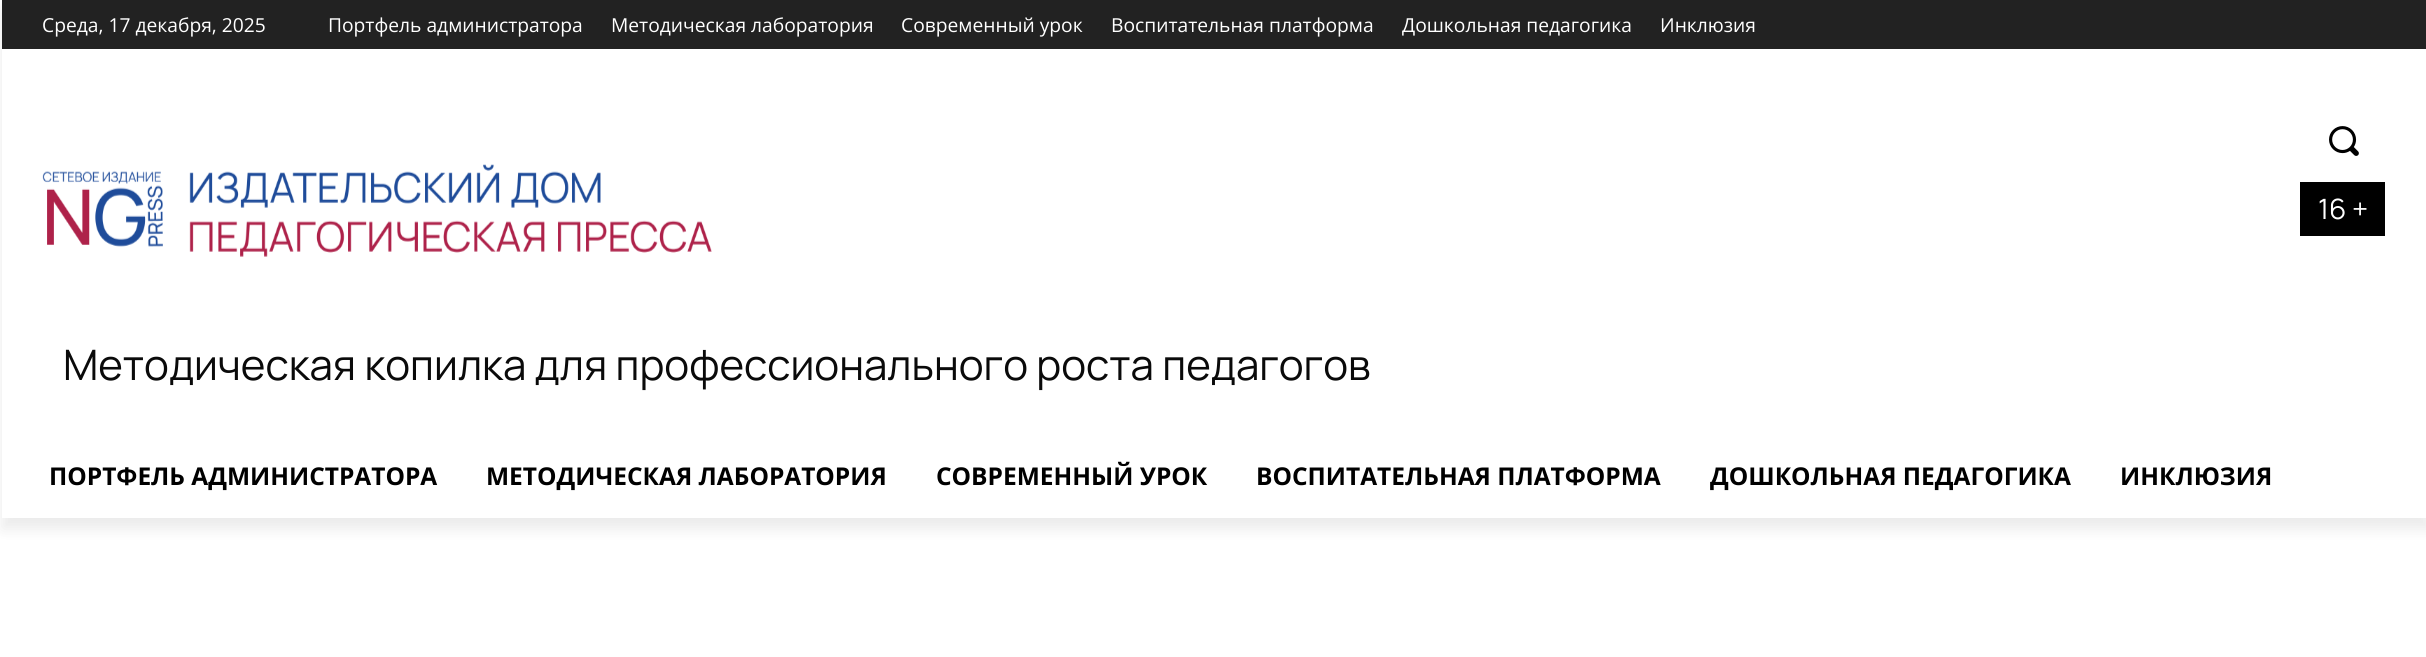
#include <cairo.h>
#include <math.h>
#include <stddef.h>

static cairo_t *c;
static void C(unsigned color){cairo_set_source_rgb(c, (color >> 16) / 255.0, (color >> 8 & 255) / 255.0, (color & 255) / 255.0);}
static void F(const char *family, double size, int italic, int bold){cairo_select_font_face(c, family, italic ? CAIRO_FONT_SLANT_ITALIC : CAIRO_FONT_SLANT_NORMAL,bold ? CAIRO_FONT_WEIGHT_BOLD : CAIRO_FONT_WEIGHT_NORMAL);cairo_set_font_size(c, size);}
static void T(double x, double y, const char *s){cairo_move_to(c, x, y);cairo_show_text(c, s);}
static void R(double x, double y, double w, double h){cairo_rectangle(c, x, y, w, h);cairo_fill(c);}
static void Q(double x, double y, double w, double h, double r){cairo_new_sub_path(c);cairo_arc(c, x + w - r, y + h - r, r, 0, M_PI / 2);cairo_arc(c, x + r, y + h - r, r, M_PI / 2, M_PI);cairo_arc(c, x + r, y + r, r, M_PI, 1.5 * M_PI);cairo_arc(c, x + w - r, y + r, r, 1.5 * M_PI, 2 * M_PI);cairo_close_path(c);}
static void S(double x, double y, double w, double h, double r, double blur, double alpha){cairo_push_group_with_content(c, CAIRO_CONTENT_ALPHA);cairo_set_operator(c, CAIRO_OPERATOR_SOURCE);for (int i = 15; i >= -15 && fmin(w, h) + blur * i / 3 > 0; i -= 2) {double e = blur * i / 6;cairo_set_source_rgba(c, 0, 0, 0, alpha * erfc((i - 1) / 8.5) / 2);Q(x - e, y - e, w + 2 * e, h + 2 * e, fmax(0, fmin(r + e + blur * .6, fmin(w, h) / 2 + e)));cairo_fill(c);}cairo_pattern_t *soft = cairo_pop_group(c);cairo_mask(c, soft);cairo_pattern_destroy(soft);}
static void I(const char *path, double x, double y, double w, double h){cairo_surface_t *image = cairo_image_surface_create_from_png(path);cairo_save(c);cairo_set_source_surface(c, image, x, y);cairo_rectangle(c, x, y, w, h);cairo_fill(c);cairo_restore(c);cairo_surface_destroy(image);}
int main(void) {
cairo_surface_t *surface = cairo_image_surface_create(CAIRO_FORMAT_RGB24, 2426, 657);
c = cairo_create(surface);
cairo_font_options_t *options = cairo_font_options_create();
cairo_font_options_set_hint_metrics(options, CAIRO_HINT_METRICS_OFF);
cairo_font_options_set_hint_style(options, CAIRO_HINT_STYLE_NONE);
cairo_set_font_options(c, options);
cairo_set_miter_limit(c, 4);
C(0xffffff);
cairo_paint(c);
C(0x222222);
R(2,0,2424,49);
I("1.png",42,164,670,93);
C(0x000000);
R(2300,182,85,54);
cairo_save(c);
cairo_set_fill_rule(c,CAIRO_FILL_RULE_EVEN_ODD);
cairo_new_path(c);
cairo_move_to(c,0,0);
cairo_line_to(c,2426,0);
cairo_line_to(c,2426,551);
cairo_line_to(c,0,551);
cairo_close_path(c);
cairo_move_to(c,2,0);
cairo_line_to(c,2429,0);
cairo_line_to(c,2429,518);
cairo_line_to(c,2,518);
cairo_close_path(c);
cairo_clip(c);
C(0x000000);
S(2,11,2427,518,0,7,.08);
cairo_restore(c);
F("Open Sans",19.25,0,0);
C(0xffffff);
T(42,32,"Среда, 17 декабря, 2025");
T(328,32,"Портфель администратора");
T(611,32,"Методическая лаборатория");
T(901,32,"Современный урок");
T(1111,32,"Воспитательная платформа");
T(1402,32,"Дошкольная педагогика");
T(1660,32,"Инклюзия");
I("2.png",2329,126,30,30);
F("Manrope",28,0,0);
T(2318,219,"16 +");
F("Manrope",42,0,0);
C(0x0a0a0a);
T(63,380,"Методическая копилка для профессионального роста педагогов");
F("Open Sans",24.5,0,1);
C(0x000000);
T(49,485,"ПОРТФЕЛЬ АДМИНИСТРАТОРА");
T(486,485,"МЕТОДИЧЕСКАЯ ЛАБОРАТОРИЯ");
T(936,485,"СОВРЕМЕННЫЙ УРОК");
T(1256,485,"ВОСПИТАТЕЛЬНАЯ ПЛАТФОРМА");
T(1710,485,"ДОШКОЛЬНАЯ ПЕДАГОГИКА");
T(2120,485,"ИНКЛЮЗИЯ");
cairo_surface_write_to_png(surface, "o.png");
cairo_font_options_destroy(options);
cairo_destroy(c);
cairo_surface_destroy(surface);
return 0;
}
